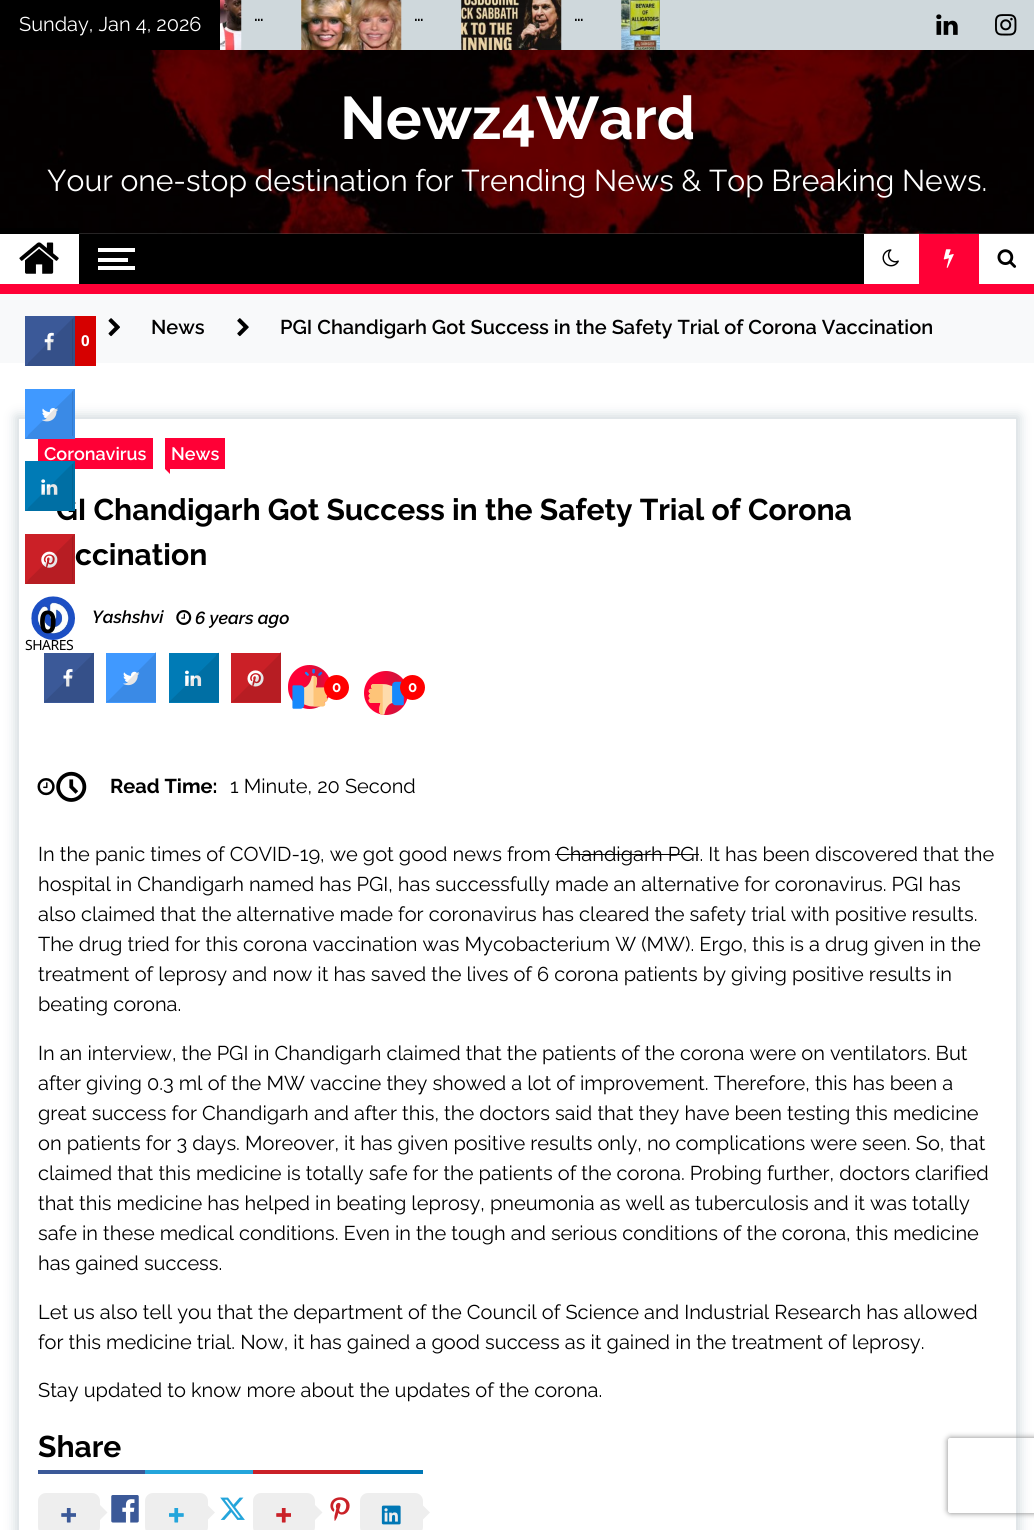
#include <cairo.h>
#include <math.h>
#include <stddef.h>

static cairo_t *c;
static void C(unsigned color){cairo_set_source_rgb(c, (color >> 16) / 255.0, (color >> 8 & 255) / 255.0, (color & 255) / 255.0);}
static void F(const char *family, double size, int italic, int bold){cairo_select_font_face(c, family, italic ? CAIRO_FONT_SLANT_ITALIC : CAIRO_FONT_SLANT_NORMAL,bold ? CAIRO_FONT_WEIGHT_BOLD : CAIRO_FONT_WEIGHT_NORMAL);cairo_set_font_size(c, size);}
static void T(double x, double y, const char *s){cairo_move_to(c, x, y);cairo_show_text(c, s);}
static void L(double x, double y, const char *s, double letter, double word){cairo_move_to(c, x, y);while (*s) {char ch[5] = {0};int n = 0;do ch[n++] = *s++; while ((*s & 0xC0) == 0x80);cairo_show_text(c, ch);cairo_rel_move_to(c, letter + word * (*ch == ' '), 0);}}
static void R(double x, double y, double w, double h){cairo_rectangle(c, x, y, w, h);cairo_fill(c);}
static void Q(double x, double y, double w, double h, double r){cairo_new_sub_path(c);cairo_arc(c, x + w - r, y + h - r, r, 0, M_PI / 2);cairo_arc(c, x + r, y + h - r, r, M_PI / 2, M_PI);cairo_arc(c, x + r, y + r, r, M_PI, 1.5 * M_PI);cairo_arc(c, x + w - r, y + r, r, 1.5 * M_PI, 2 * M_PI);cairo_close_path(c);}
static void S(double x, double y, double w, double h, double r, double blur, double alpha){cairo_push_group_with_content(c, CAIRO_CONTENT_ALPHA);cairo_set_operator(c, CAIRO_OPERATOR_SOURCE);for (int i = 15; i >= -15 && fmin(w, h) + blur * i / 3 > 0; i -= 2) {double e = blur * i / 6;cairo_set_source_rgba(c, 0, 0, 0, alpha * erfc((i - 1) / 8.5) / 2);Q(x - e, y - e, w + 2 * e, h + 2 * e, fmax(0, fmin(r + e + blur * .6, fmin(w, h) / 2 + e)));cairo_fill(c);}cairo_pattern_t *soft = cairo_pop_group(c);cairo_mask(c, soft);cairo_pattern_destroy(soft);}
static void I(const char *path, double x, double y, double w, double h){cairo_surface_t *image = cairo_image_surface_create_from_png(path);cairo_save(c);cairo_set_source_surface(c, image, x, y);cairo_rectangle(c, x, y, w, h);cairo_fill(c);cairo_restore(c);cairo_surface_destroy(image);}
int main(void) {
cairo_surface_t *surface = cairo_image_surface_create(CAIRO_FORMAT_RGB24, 1034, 1530);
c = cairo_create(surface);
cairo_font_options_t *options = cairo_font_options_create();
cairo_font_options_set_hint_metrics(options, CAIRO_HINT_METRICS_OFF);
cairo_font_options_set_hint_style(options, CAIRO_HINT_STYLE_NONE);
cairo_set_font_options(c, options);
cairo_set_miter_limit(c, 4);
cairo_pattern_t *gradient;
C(0xffffff);
cairo_paint(c);
C(0x666666);
R(79,233,955,1);
C(0xcfd8dc);
R(241,0,793,50);
C(0x000000);
R(0,0,220,50);
F("Raleway",20,0,0);
C(0xffffff);
T(19,31,"Sunday, Jan 4, 2026");
I("1.png",220,0,22,50);
F("Raleway SemiBold",17.5,0,0);
C(0x000000);
T(254,21,"…");
I("2.png",301,0,101,50);
T(414,21,"…");
I("3.png",461,0,101,50);
T(574,21,"…");
I("4.png",621,0,39,50);
I("5.png",936,14,22,21);
I("6.png",995,14,22,22);
I("7.png",0,50,1034,184);
F("Raleway",60,0,1);
C(0xffffff);
T(340,139,"Newz4Ward");
F("Raleway",30,0,0);
T(47,191,"Your one-stop destination for Trending News & Top Breaking News.");
C(0x000000);
R(79,234,785,50);
R(0,228,79,6);
I("8.png",19,242,40,32);
C(0xffffff);
R(98,248,37,4);
R(98,266,37,4);
R(98,258,30,4);
I("9.png",882,249,17,18);
C(0xff0036);
R(919,234,60,50);
I("10.png",943,249,11,19);
I("11.png",997,249,20,19);
R(0,284,1034,10);
C(0xf8f9fa);
R(0,294,1034,69);
I("12.png",108,318,12,19);
F("Raleway SemiBold",20,0,0);
C(0x000000);
T(151,334,"News");
I("13.png",237,318,12,19);
T(280,334,"PGI Chandigarh Got Success in the Safety Trial of Corona Vaccination");
cairo_save(c);
cairo_set_fill_rule(c,CAIRO_FILL_RULE_EVEN_ODD);
cairo_new_path(c);
cairo_move_to(c,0,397);
cairo_line_to(c,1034,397);
cairo_line_to(c,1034,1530);
cairo_line_to(c,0,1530);
cairo_close_path(c);
cairo_move_to(c,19,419);
cairo_line_to(c,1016,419);
cairo_line_to(c,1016,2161);
cairo_line_to(c,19,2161);
cairo_close_path(c);
cairo_clip(c);
C(0xcfd8dc);
S(16,416,1003,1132,0,6,1);
cairo_restore(c);
C(0xff0036);
R(38,438,115,31);
F("Raleway SemiBold",18,0,0);
C(0xffffff);
T(44,460,"Coronavirus");
C(0xff0036);
R(165,438,60,31);
C(0xffffff);
T(171,460,"News");
C(0xff0036);
cairo_new_path(c);
cairo_move_to(c,170,469);
cairo_line_to(c,170,474);
cairo_line_to(c,165,469);
cairo_close_path(c);
cairo_fill(c);
F("Raleway",30,0,1);
C(0x000000);
T(56,520,"GI Chandigarh Got Success in the Safety Trial of Corona");
T(75,565,"ccination");
I("14.png",31,596,44,44);
F("Raleway SemiBold",17.5,1,0);
T(92,623,"Yashshvi");
I("15.png",176,610,16,15);
T(195,624,"6 years ago");
C(0x3b5998);
R(44,653,50,50);
cairo_set_source_rgba(c,0,0,0,0.1);
cairo_new_path(c);
cairo_move_to(c,94,652);
cairo_line_to(c,94,702);
cairo_line_to(c,91,700);
cairo_line_to(c,91,655);
cairo_close_path(c);
cairo_fill(c);
cairo_new_path(c);
cairo_move_to(c,94,702);
cairo_line_to(c,44,702);
cairo_line_to(c,46,700);
cairo_line_to(c,91,700);
cairo_close_path(c);
cairo_fill(c);
I("16.png",63,669,10,18);
cairo_save(c);
cairo_rectangle(c,46,655,45,45);
cairo_clip(c);
cairo_new_path(c);
cairo_move_to(c,94,653);
cairo_line_to(c,118,678);
cairo_line_to(c,69,727);
cairo_line_to(c,44,702);
cairo_close_path(c);
cairo_fill(c);
cairo_restore(c);
C(0x4099ff);
R(106,653,50,50);
C(0x3a8ae6);
cairo_new_path(c);
cairo_move_to(c,156,652);
cairo_line_to(c,156,702);
cairo_line_to(c,154,700);
cairo_line_to(c,154,655);
cairo_close_path(c);
cairo_fill(c);
cairo_set_source_rgba(c,0,0,0,0.1);
cairo_new_path(c);
cairo_move_to(c,156,702);
cairo_line_to(c,106,702);
cairo_line_to(c,109,700);
cairo_line_to(c,154,700);
cairo_close_path(c);
cairo_fill(c);
I("17.png",123,671,17,15);
cairo_save(c);
cairo_rectangle(c,109,655,45,45);
cairo_clip(c);
cairo_new_path(c);
cairo_move_to(c,156,653);
cairo_line_to(c,181,678);
cairo_line_to(c,131,727);
cairo_line_to(c,107,702);
cairo_close_path(c);
cairo_fill(c);
cairo_restore(c);
C(0x007bb6);
R(169,653,50,50);
cairo_set_source_rgba(c,0,0,0,0.1);
cairo_new_path(c);
cairo_move_to(c,219,652);
cairo_line_to(c,219,702);
cairo_line_to(c,216,700);
cairo_line_to(c,216,655);
cairo_close_path(c);
cairo_fill(c);
cairo_new_path(c);
cairo_move_to(c,219,702);
cairo_line_to(c,169,702);
cairo_line_to(c,171,700);
cairo_line_to(c,216,700);
cairo_close_path(c);
cairo_fill(c);
I("18.png",185,670,17,16);
cairo_save(c);
cairo_rectangle(c,171,655,45,45);
cairo_clip(c);
cairo_new_path(c);
cairo_move_to(c,219,653);
cairo_line_to(c,243,678);
cairo_line_to(c,194,727);
cairo_line_to(c,169,702);
cairo_close_path(c);
cairo_fill(c);
cairo_restore(c);
C(0xcb2027);
R(231,653,50,50);
C(0xb71d23);
cairo_new_path(c);
cairo_move_to(c,281,652);
cairo_line_to(c,281,702);
cairo_line_to(c,279,700);
cairo_line_to(c,279,655);
cairo_close_path(c);
cairo_fill(c);
cairo_set_source_rgba(c,0,0,0,0.1);
cairo_new_path(c);
cairo_move_to(c,281,702);
cairo_line_to(c,231,702);
cairo_line_to(c,234,700);
cairo_line_to(c,279,700);
cairo_close_path(c);
cairo_fill(c);
I("19.png",247,670,17,17);
cairo_save(c);
cairo_rectangle(c,234,655,45,45);
cairo_clip(c);
cairo_new_path(c);
cairo_move_to(c,281,653);
cairo_line_to(c,306,678);
cairo_line_to(c,256,727);
cairo_line_to(c,232,702);
cairo_close_path(c);
cairo_fill(c);
cairo_restore(c);
gradient = cairo_pattern_create_linear(288,687,331,687);
cairo_pattern_add_color_stop_rgba(gradient,0,1,0,0.212,1);
cairo_pattern_add_color_stop_rgba(gradient,.33,1,0,0.212,1);
cairo_pattern_add_color_stop_rgba(gradient,.74,0.827,0.071,0.231,1);
cairo_pattern_add_color_stop_rgba(gradient,.9,1,0,0.212,1);
cairo_set_source(c,gradient);
cairo_pattern_destroy(gradient);
Q(288,665,43,44,21.5);
cairo_fill(c);
I("20.png",292,669,36,40);
C(0xff0000);
cairo_arc(c,336.5,687.5,12.5,0,2 * M_PI);
cairo_fill(c);
F("Raleway",15,0,1);
C(0xffffff);
T(332,692,"0");
gradient = cairo_pattern_create_linear(364,693,408,693);
cairo_pattern_add_color_stop_rgba(gradient,0,1,0,0.212,1);
cairo_pattern_add_color_stop_rgba(gradient,.33,1,0,0.212,1);
cairo_pattern_add_color_stop_rgba(gradient,.74,0.827,0.071,0.231,1);
cairo_pattern_add_color_stop_rgba(gradient,.9,1,0,0.212,1);
cairo_set_source(c,gradient);
cairo_pattern_destroy(gradient);
cairo_new_path(c);
cairo_arc(c,386,693,22,0,2 * M_PI);
cairo_fill(c);
I("21.png",368,681,36,34);
C(0xff0000);
cairo_arc(c,412.5,687.5,12.5,0,2 * M_PI);
cairo_fill(c);
C(0xffffff);
T(408,692,"0");
I("22.png",56,771,31,31);
I("23.png",37,778,18,18);
F("Raleway",20,0,1);
C(0x000000);
T(110,793,"Read Time:");
F("Raleway",20,0,0);
T(230,793,"1 Minute, 20 Second");
T(38,861,"In the panic times of COVID-19, we got good news from Chandigarh PGI. It has been discovered that the");
R(555,854,144,1);
T(38,891,"hospital in Chandigarh named has PGI, has successfully made an alternative for coronavirus. PGI has");
T(38,921,"also claimed that the alternative made for coronavirus has cleared the safety trial with positive results.");
T(38,951,"The drug tried for this corona vaccination was Mycobacterium W (MW). Ergo, this is a drug given in the");
T(38,981,"treatment of leprosy and now it has saved the lives of 6 corona patients by giving positive results in");
T(38,1011,"beating corona.");
T(38,1060,"In an interview, the PGI in Chandigarh claimed that the patients of the corona were on ventilators. But");
T(38,1090,"after giving 0.3 ml of the MW vaccine they showed a lot of improvement. Therefore, this has been a");
T(38,1120,"great success for Chandigarh and after this, the doctors said that they have been testing this medicine");
T(38,1150,"on patients for 3 days. Moreover, it has given positive results only, no complications were seen. So, that");
T(38,1180,"claimed that this medicine is totally safe for the patients of the corona. Probing further, doctors clarified");
T(38,1210,"that this medicine has helped in beating leprosy, pneumonia as well as tuberculosis and it was totally");
T(38,1240,"safe in these medical conditions. Even in the tough and serious conditions of the corona, this medicine");
T(38,1270,"has gained success.");
T(38,1319,"Let us also tell you that the department of the Council of Science and Industrial Research has allowed");
T(38,1349,"for this medicine trial. Now, it has gained a good success as it gained in the treatment of leprosy.");
T(38,1397,"Stay updated to know more about the updates of the corona.");
F("Raleway",30,0,1);
T(38,1457,"Share");
C(0x3b5998);
R(38,1470,107,4);
C(0xeeeeee);
Q(38,1493,62,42,8);
cairo_fill(c);
I("24.png",61,1508,15,15);
cairo_new_path(c);
cairo_move_to(c,100,1520);
cairo_line_to(c,100,1505);
cairo_line_to(c,107.5,1512.5);
cairo_close_path(c);
cairo_fill(c);
I("25.png",111,1495,28,28);
C(0x24a5db);
R(145,1470,108,4);
C(0xeeeeee);
Q(145,1493,63,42,8);
cairo_fill(c);
I("26.png",169,1508,15,15);
cairo_new_path(c);
cairo_move_to(c,207.5,1520);
cairo_line_to(c,207.5,1505);
cairo_line_to(c,215,1512.5);
cairo_close_path(c);
cairo_fill(c);
I("27.png",220,1497,25,23);
C(0xca2128);
R(253,1470,107,4);
C(0xeeeeee);
Q(253,1493,62,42,8);
cairo_fill(c);
I("28.png",276,1508,15,15);
cairo_new_path(c);
cairo_move_to(c,315,1520);
cairo_line_to(c,315,1505);
cairo_line_to(c,322.5,1512.5);
cairo_close_path(c);
cairo_fill(c);
I("29.png",330,1497,20,24);
C(0x0077b5);
R(360,1470,63,4);
C(0xeeeeee);
Q(360,1493,63,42,8);
cairo_fill(c);
I("30.png",381,1505,20,20);
cairo_new_path(c);
cairo_move_to(c,422.5,1520);
cairo_line_to(c,422.5,1505);
cairo_line_to(c,430,1512.5);
cairo_close_path(c);
cairo_fill(c);
C(0x3b5998);
R(25,316,50,50);
C(0x355089);
cairo_new_path(c);
cairo_move_to(c,75,316);
cairo_line_to(c,75,366);
cairo_line_to(c,72,364);
cairo_line_to(c,72,319);
cairo_close_path(c);
cairo_fill(c);
cairo_set_source_rgba(c,0,0,0,0.1);
cairo_new_path(c);
cairo_move_to(c,75,366);
cairo_line_to(c,25,366);
cairo_line_to(c,28,364);
cairo_line_to(c,72,364);
cairo_close_path(c);
cairo_fill(c);
I("31.png",44,332,10,19);
cairo_save(c);
cairo_rectangle(c,28,319,45,45);
cairo_clip(c);
cairo_new_path(c);
cairo_move_to(c,75,316);
cairo_line_to(c,100,341);
cairo_line_to(c,50,391);
cairo_line_to(c,25,366);
cairo_close_path(c);
cairo_fill(c);
cairo_restore(c);
C(0xd60000);
R(75,316,21,50);
F("Noto Sans",15,0,1);
C(0xffffff);
L(81,346,"0",1,0);
C(0x4099ff);
R(25,389,50,50);
C(0x3a8ae6);
cairo_new_path(c);
cairo_move_to(c,75,389);
cairo_line_to(c,75,439);
cairo_line_to(c,72,436);
cairo_line_to(c,72,391);
cairo_close_path(c);
cairo_fill(c);
cairo_set_source_rgba(c,0,0,0,0.1);
cairo_new_path(c);
cairo_move_to(c,75,439);
cairo_line_to(c,25,439);
cairo_line_to(c,28,436);
cairo_line_to(c,72,436);
cairo_close_path(c);
cairo_fill(c);
I("32.png",42,408,16,14);
cairo_save(c);
cairo_rectangle(c,28,391,45,45);
cairo_clip(c);
cairo_new_path(c);
cairo_move_to(c,75,389);
cairo_line_to(c,100,414);
cairo_line_to(c,50,463);
cairo_line_to(c,25,438);
cairo_close_path(c);
cairo_fill(c);
cairo_restore(c);
C(0x007bb6);
R(25,461,50,50);
C(0x006fa4);
cairo_new_path(c);
cairo_move_to(c,75,461);
cairo_line_to(c,75,511);
cairo_line_to(c,72,509);
cairo_line_to(c,72,464);
cairo_close_path(c);
cairo_fill(c);
cairo_set_source_rgba(c,0,0,0,0.1);
cairo_new_path(c);
cairo_move_to(c,75,511);
cairo_line_to(c,25,511);
cairo_line_to(c,28,509);
cairo_line_to(c,72,509);
cairo_close_path(c);
cairo_fill(c);
I("33.png",41,479,17,16);
cairo_save(c);
cairo_rectangle(c,28,464,45,45);
cairo_clip(c);
cairo_new_path(c);
cairo_move_to(c,75,461);
cairo_line_to(c,100,486);
cairo_line_to(c,50,536);
cairo_line_to(c,25,511);
cairo_close_path(c);
cairo_fill(c);
cairo_restore(c);
C(0xcb2027);
R(25,534,50,50);
C(0xb71d23);
cairo_new_path(c);
cairo_move_to(c,75,534);
cairo_line_to(c,75,584);
cairo_line_to(c,72,581);
cairo_line_to(c,72,536);
cairo_close_path(c);
cairo_fill(c);
cairo_set_source_rgba(c,0,0,0,0.1);
cairo_new_path(c);
cairo_move_to(c,75,584);
cairo_line_to(c,25,584);
cairo_line_to(c,28,581);
cairo_line_to(c,72,581);
cairo_close_path(c);
cairo_fill(c);
I("34.png",41,551,17,17);
cairo_save(c);
cairo_rectangle(c,28,536,45,45);
cairo_clip(c);
cairo_new_path(c);
cairo_move_to(c,75,534);
cairo_line_to(c,100,559);
cairo_line_to(c,50,608);
cairo_line_to(c,25,583);
cairo_close_path(c);
cairo_fill(c);
cairo_restore(c);
F("Noto Sans",31,0,1);
C(0x000000);
L(39,633,"0",1,0);
F("Noto Sans",14,0,0);
L(25,650,"SHARES",-.5,0);
cairo_save(c);
cairo_set_fill_rule(c,CAIRO_FILL_RULE_EVEN_ODD);
cairo_new_path(c);
cairo_move_to(c,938,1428);
cairo_line_to(c,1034,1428);
cairo_line_to(c,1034,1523);
cairo_line_to(c,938,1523);
cairo_close_path(c);
cairo_move_to(c,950.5,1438);
cairo_line_to(c,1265.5,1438);
cairo_curve_to(c,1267,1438,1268,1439,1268,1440.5);
cairo_line_to(c,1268,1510.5);
cairo_curve_to(c,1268,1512,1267,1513,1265.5,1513);
cairo_line_to(c,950.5,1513);
cairo_curve_to(c,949,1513,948,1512,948,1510.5);
cairo_line_to(c,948,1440.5);
cairo_curve_to(c,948,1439,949,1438,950.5,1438);
cairo_close_path(c);
cairo_clip(c);
C(0x808080);
S(948,1438,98,75,2.5,3,1);
cairo_restore(c);
cairo_surface_write_to_png(surface, "o.png");
cairo_font_options_destroy(options);
cairo_destroy(c);
cairo_surface_destroy(surface);
return 0;
}
